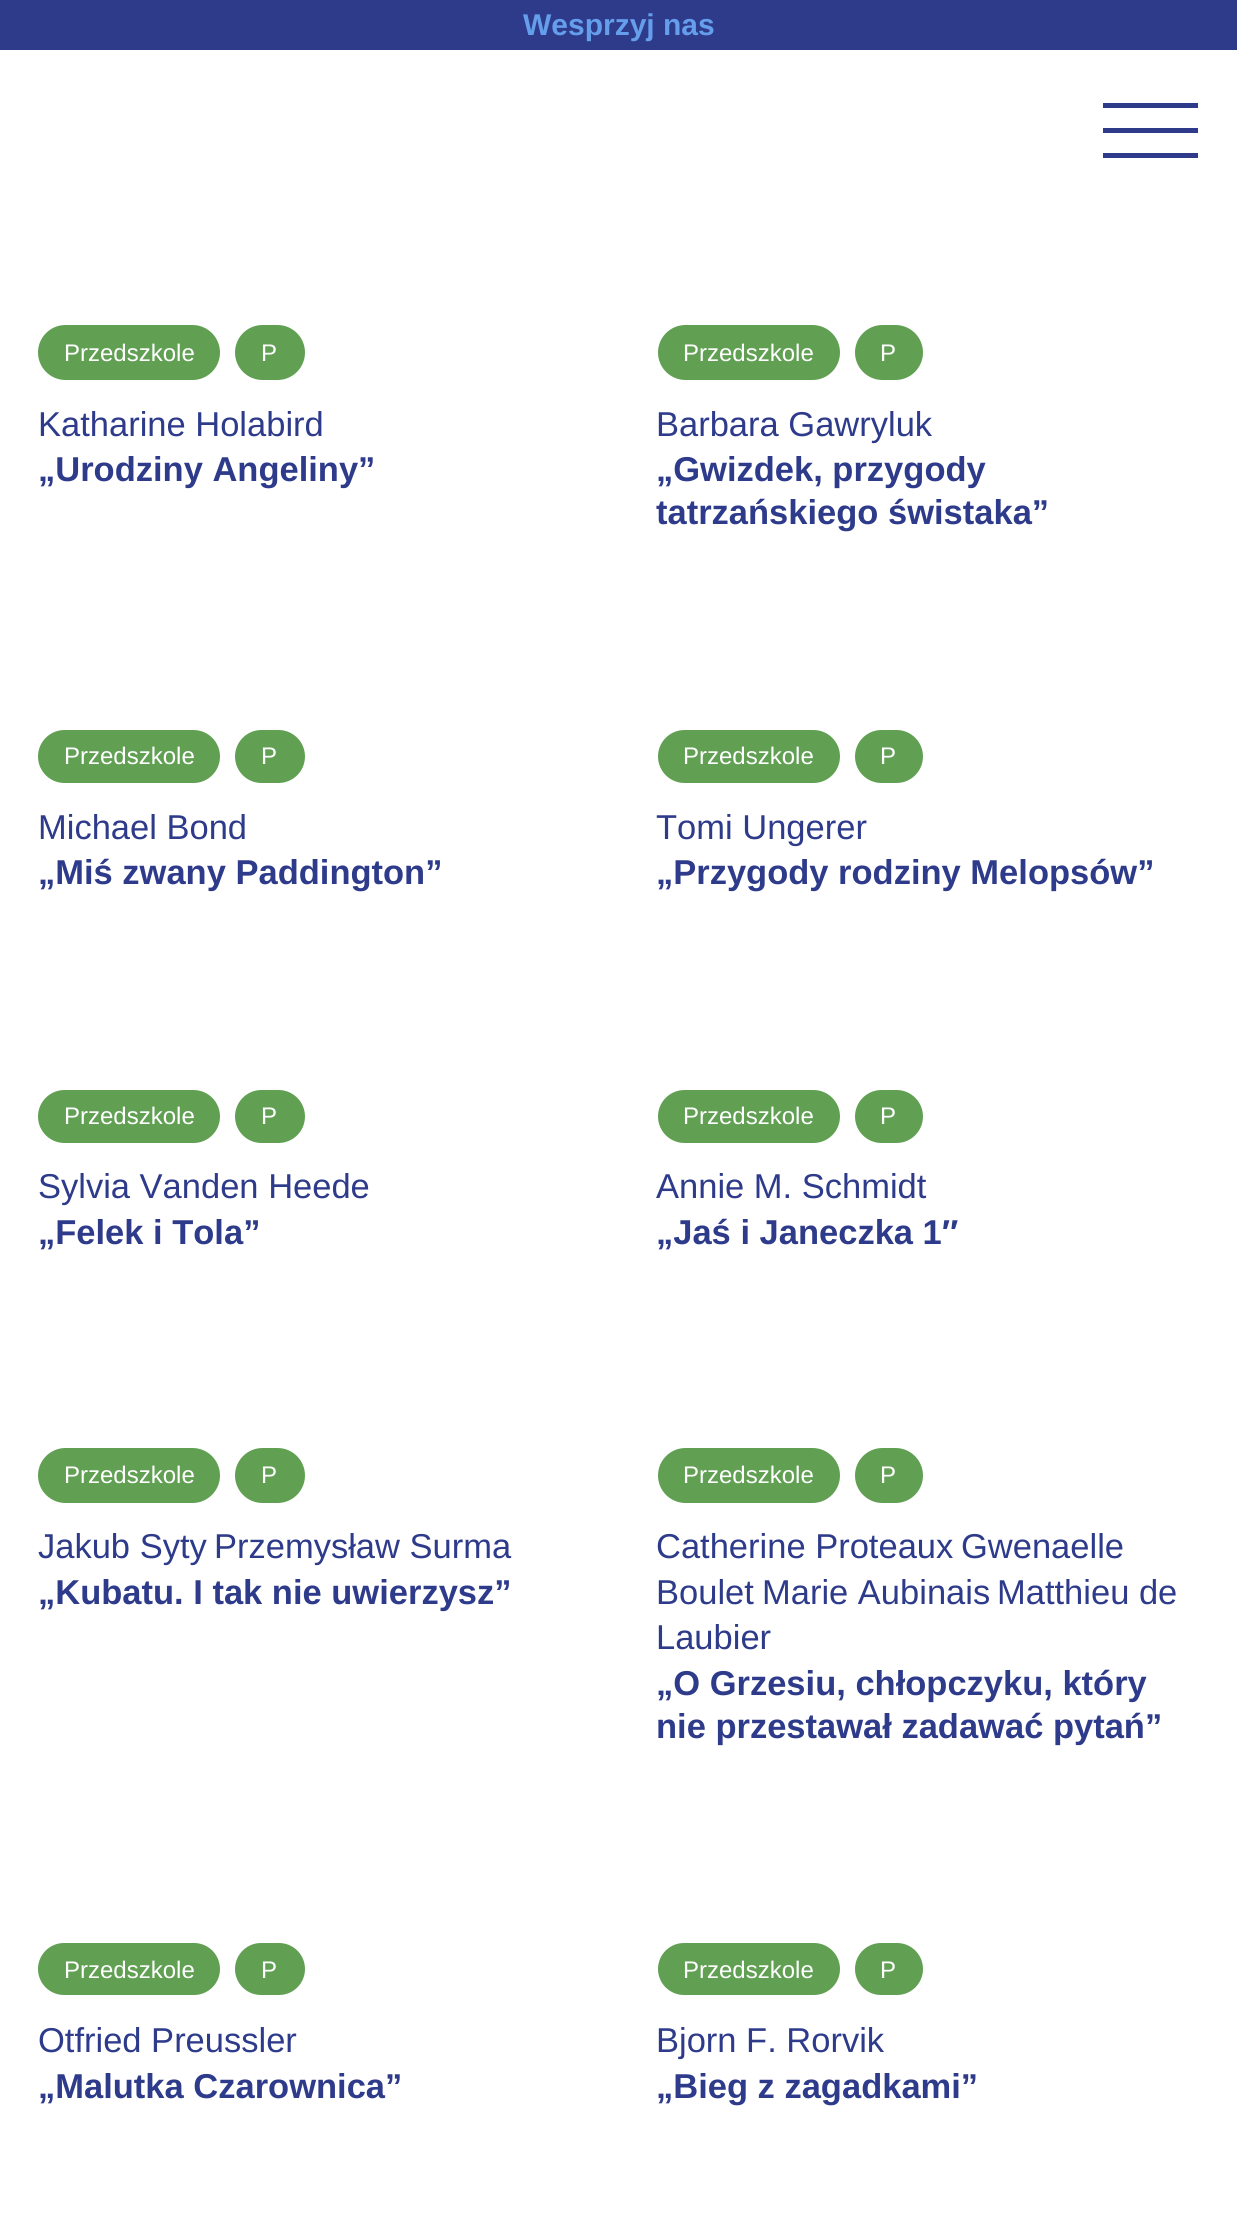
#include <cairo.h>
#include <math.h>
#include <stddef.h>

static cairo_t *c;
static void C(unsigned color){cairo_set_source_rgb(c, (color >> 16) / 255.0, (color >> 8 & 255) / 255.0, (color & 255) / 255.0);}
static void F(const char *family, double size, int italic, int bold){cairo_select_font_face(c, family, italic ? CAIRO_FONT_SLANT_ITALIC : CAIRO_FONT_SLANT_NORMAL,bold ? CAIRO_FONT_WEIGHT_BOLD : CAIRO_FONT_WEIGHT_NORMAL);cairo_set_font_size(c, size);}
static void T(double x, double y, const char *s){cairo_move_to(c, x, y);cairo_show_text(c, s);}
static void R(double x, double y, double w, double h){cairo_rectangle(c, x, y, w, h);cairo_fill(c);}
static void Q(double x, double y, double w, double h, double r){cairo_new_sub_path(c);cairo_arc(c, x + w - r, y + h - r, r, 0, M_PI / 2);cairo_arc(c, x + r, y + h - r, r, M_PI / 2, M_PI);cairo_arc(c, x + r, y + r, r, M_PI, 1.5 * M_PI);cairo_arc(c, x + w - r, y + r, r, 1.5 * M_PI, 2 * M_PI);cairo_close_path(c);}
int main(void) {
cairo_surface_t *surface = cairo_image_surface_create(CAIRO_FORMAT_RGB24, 1237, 2221);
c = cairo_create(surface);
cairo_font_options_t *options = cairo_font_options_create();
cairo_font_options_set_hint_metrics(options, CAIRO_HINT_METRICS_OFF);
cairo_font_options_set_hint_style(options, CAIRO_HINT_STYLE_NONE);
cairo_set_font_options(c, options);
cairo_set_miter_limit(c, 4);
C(0xffffff);
cairo_paint(c);
C(0x2e3b8b);
R(0,0,1237,50);
F("Liberation Sans",30,0,1);
C(0x659eeb);
T(523,35,"Wesprzyj nas");
C(0x2e3b8b);
R(1103,103,95,5);
R(1103,128,95,5);
R(1103,153,95,5);
C(0x61a053);
Q(39.5,326.5,179,52,26);
cairo_fill_preserve(c);
cairo_set_line_width(c,3);
cairo_stroke(c);
F("Liberation Sans",24,0,0);
C(0xffffff);
T(64,361,"Przedszkole");
C(0x61a053);
Q(236.5,326.5,67,52,26);
cairo_fill_preserve(c);
cairo_stroke(c);
C(0xffffff);
T(261,361,"P");
F("Liberation Sans",34.5,0,0);
C(0x2e3b8b);
T(38,436,"Katharine Holabird");
F("Liberation Sans",34.5,0,1);
T(38,481,"„Urodziny Angeliny”");
C(0x61a053);
Q(659.5,326.5,179,52,26);
cairo_fill_preserve(c);
cairo_stroke(c);
F("Liberation Sans",24,0,0);
C(0xffffff);
T(683,361,"Przedszkole");
C(0x61a053);
Q(856.5,326.5,65,52,26);
cairo_fill_preserve(c);
cairo_stroke(c);
C(0xffffff);
T(880,361,"P");
F("Liberation Sans",34.5,0,0);
C(0x2e3b8b);
T(656,436,"Barbara Gawryluk");
F("Liberation Sans",34.5,0,1);
T(656,481,"„Gwizdek, przygody");
T(656,524,"tatrzańskiego świstaka”");
C(0x61a053);
Q(39.5,731.5,179,50,25);
cairo_fill_preserve(c);
cairo_stroke(c);
F("Liberation Sans",24,0,0);
C(0xffffff);
T(64,764,"Przedszkole");
C(0x61a053);
Q(236.5,731.5,67,50,25);
cairo_fill_preserve(c);
cairo_stroke(c);
C(0xffffff);
T(261,764,"P");
F("Liberation Sans",34.5,0,0);
C(0x2e3b8b);
T(38,839,"Michael Bond");
F("Liberation Sans",34.5,0,1);
T(38,884,"„Miś zwany Paddington”");
C(0x61a053);
Q(659.5,731.5,179,50,25);
cairo_fill_preserve(c);
cairo_stroke(c);
F("Liberation Sans",24,0,0);
C(0xffffff);
T(683,764,"Przedszkole");
C(0x61a053);
Q(856.5,731.5,65,50,25);
cairo_fill_preserve(c);
cairo_stroke(c);
C(0xffffff);
T(880,764,"P");
F("Liberation Sans",34.5,0,0);
C(0x2e3b8b);
T(656,839,"Tomi Ungerer");
F("Liberation Sans",34.5,0,1);
T(656,884,"„Przygody rodziny Melopsów”");
C(0x61a053);
Q(39.5,1091.5,179,50,25);
cairo_fill_preserve(c);
cairo_stroke(c);
F("Liberation Sans",24,0,0);
C(0xffffff);
T(64,1124,"Przedszkole");
C(0x61a053);
Q(236.5,1091.5,67,50,25);
cairo_fill_preserve(c);
cairo_stroke(c);
C(0xffffff);
T(261,1124,"P");
F("Liberation Sans",34.5,0,0);
C(0x2e3b8b);
T(38,1198,"Sylvia Vanden Heede");
F("Liberation Sans",34.5,0,1);
T(38,1244,"„Felek i Tola”");
C(0x61a053);
Q(659.5,1091.5,179,50,25);
cairo_fill_preserve(c);
cairo_stroke(c);
F("Liberation Sans",24,0,0);
C(0xffffff);
T(683,1124,"Przedszkole");
C(0x61a053);
Q(856.5,1091.5,65,50,25);
cairo_fill_preserve(c);
cairo_stroke(c);
C(0xffffff);
T(880,1124,"P");
F("Liberation Sans",34.5,0,0);
C(0x2e3b8b);
T(656,1198,"Annie M. Schmidt");
F("Liberation Sans",34.5,0,1);
T(656,1244,"„Jaś i Janeczka 1″");
C(0x61a053);
Q(39.5,1449.5,179,52,26);
cairo_fill_preserve(c);
cairo_stroke(c);
F("Liberation Sans",24,0,0);
C(0xffffff);
T(64,1483,"Przedszkole");
C(0x61a053);
Q(236.5,1449.5,67,52,26);
cairo_fill_preserve(c);
cairo_stroke(c);
C(0xffffff);
T(261,1483,"P");
F("Liberation Sans",34.5,0,0);
C(0x2e3b8b);
T(38,1558,"Jakub Syty");
T(214,1558,"Przemysław Surma");
F("Liberation Sans",34.5,0,1);
T(38,1604,"„Kubatu. I tak nie uwierzysz”");
C(0x61a053);
Q(659.5,1449.5,179,52,26);
cairo_fill_preserve(c);
cairo_stroke(c);
F("Liberation Sans",24,0,0);
C(0xffffff);
T(683,1483,"Przedszkole");
C(0x61a053);
Q(856.5,1449.5,65,52,26);
cairo_fill_preserve(c);
cairo_stroke(c);
C(0xffffff);
T(880,1483,"P");
F("Liberation Sans",34.5,0,0);
C(0x2e3b8b);
T(656,1558,"Catherine Proteaux");
T(961,1558,"Gwenaelle");
T(656,1604,"Boulet");
T(762,1604,"Marie Aubinais");
T(997,1604,"Matthieu de");
T(656,1649,"Laubier");
F("Liberation Sans",34.5,0,1);
T(656,1695,"„O Grzesiu, chłopczyku, który");
T(656,1738,"nie przestawał zadawać pytań”");
C(0x61a053);
Q(39.5,1944.5,179,49,24.5);
cairo_fill_preserve(c);
cairo_stroke(c);
F("Liberation Sans",24,0,0);
C(0xffffff);
T(64,1978,"Przedszkole");
C(0x61a053);
Q(236.5,1944.5,67,49,24.5);
cairo_fill_preserve(c);
cairo_stroke(c);
C(0xffffff);
T(261,1978,"P");
F("Liberation Sans",34.5,0,0);
C(0x2e3b8b);
T(38,2052,"Otfried Preussler");
F("Liberation Sans",34.5,0,1);
T(38,2098,"„Malutka Czarownica”");
C(0x61a053);
Q(659.5,1944.5,179,49,24.5);
cairo_fill_preserve(c);
cairo_stroke(c);
F("Liberation Sans",24,0,0);
C(0xffffff);
T(683,1978,"Przedszkole");
C(0x61a053);
Q(856.5,1944.5,65,49,24.5);
cairo_fill_preserve(c);
cairo_stroke(c);
C(0xffffff);
T(880,1978,"P");
F("Liberation Sans",34.5,0,0);
C(0x2e3b8b);
T(656,2052,"Bjorn F. Rorvik");
F("Liberation Sans",34.5,0,1);
T(656,2098,"„Bieg z zagadkami”");
cairo_surface_write_to_png(surface, "o.png");
cairo_font_options_destroy(options);
cairo_destroy(c);
cairo_surface_destroy(surface);
return 0;
}
